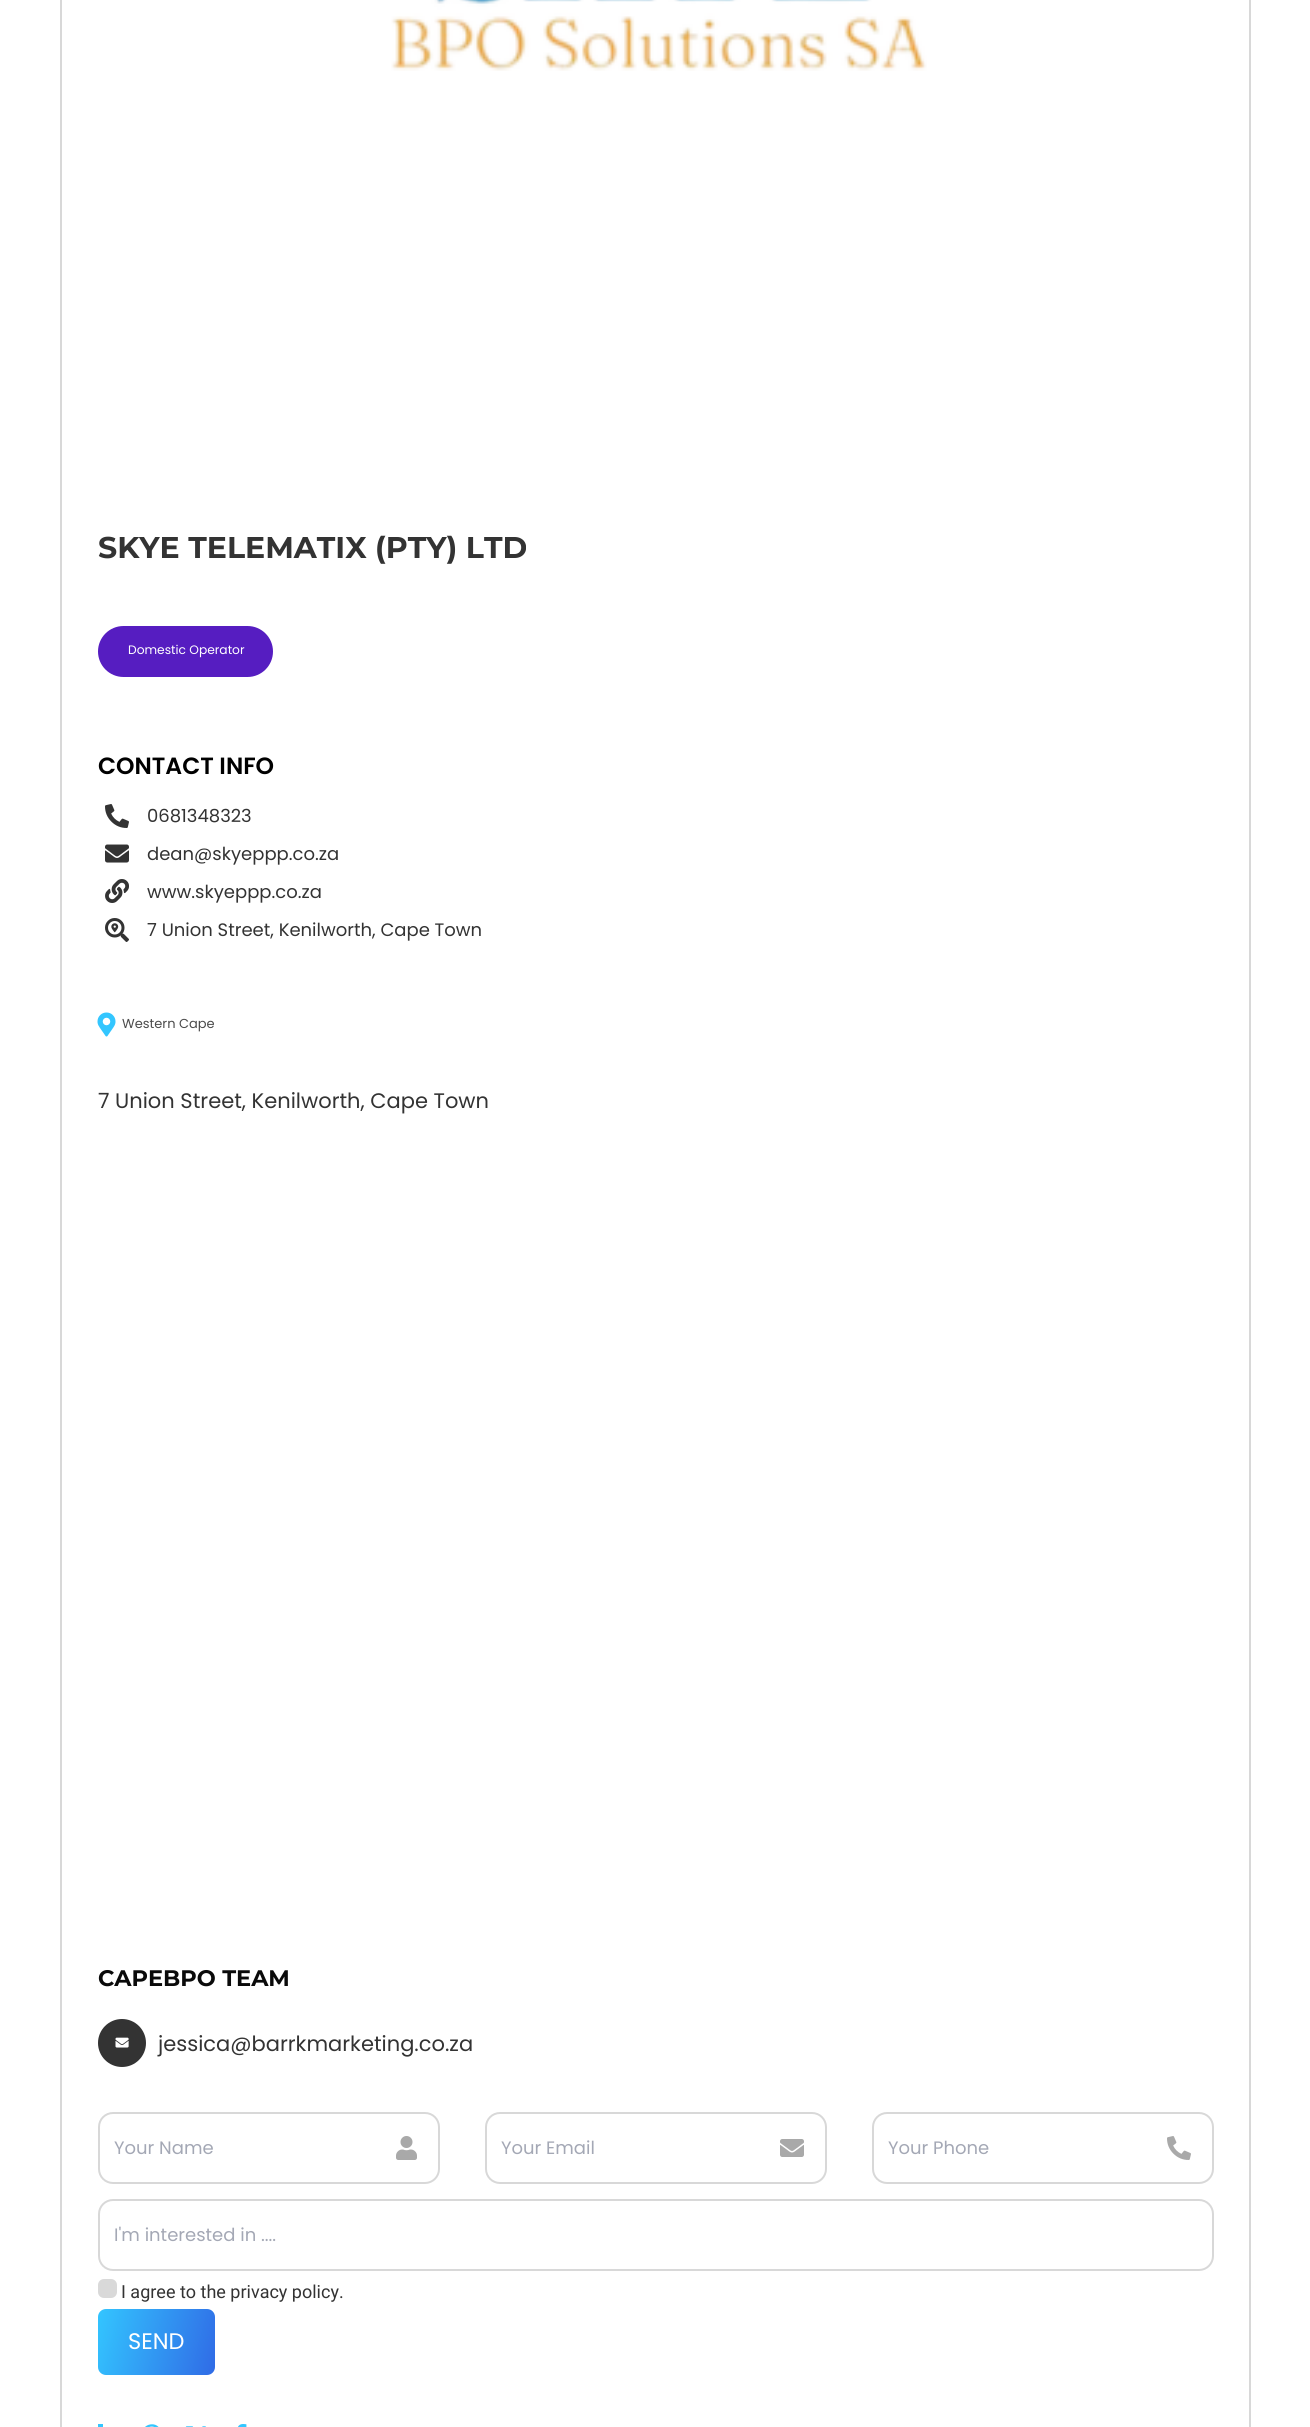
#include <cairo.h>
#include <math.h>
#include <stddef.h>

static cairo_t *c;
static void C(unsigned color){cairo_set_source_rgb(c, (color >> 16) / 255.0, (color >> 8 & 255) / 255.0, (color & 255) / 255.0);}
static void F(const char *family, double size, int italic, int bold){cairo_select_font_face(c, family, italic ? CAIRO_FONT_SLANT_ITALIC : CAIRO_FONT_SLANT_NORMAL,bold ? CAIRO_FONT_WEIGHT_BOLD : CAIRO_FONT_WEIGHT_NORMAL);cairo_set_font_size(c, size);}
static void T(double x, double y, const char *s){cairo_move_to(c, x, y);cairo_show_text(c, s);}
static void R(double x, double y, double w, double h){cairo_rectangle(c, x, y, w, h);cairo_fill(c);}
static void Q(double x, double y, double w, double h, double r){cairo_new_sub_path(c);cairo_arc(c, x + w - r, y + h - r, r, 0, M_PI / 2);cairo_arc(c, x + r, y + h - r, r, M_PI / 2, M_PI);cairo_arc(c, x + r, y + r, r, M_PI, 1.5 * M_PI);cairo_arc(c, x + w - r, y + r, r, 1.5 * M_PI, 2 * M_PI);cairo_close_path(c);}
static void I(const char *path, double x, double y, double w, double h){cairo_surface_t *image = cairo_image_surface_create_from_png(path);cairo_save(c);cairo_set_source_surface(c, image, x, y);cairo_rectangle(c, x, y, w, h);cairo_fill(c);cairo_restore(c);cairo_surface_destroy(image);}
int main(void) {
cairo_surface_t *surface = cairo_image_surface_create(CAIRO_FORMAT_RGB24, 1310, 2427);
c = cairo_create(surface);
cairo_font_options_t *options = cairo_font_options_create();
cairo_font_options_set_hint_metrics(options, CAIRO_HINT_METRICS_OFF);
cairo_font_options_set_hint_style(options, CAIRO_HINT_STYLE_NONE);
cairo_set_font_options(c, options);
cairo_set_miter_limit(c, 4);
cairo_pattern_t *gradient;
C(0xffffff);
cairo_paint(c);
cairo_rectangle(c,61,-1,1189,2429);
C(0xd8d8d8);
cairo_stroke(c);
I("1.png",391,0,536,71);
F("Montserrat",30,0,1);
C(0x333333);
T(98,558,"SKYE TELEMATIX (PTY) LTD");
C(0x561dc1);
Q(98,626,175,51,25.5);
cairo_fill(c);
F("Poppins",12.25,0,0);
C(0xffffff);
T(128,654,"Domestic Operator");
F("Poppins SemiBold",23.5,0,0);
C(0x000000);
T(98,774,"CONTACT INFO");
I("2.png",105,804,24,24);
F("Poppins",18,0,0);
C(0x333333);
T(147,822,"0681348323");
I("3.png",105,844,24,19);
T(147,860,"dean@skyeppp.co.za");
I("4.png",105,879,24,24);
T(147,898,"www.skyeppp.co.za");
I("5.png",105,918,24,24);
T(147,936,"7 Union Street, Kenilworth, Cape Town");
I("6.png",97,1012,19,25);
F("Poppins",13,0,0);
C(0x4a4a4a);
T(122,1028,"Western Cape");
F("Poppins",21,0,0);
C(0x333333);
T(98,1108,"7 Union Street, Kenilworth, Cape Town");
F("Montserrat",22.5,0,1);
C(0x0a0a0a);
T(98,1986,"CAPEBPO TEAM");
C(0x333333);
cairo_new_path(c);
cairo_arc(c,122,2043,24,0,2 * M_PI);
cairo_fill(c);
I("7.png",115,2037,14,11);
F("Poppins",21,0,0);
T(158,2051,"jessica@barrkmarketing.co.za");
Q(99,2113,340,70,14);
C(0xd8d8d8);
cairo_stroke(c);
F("Poppins",18,0,0);
C(0xa4a8b5);
T(114,2154,"Your Name");
I("8.png",396,2136,21,24);
Q(486,2113,340,70,14);
C(0xd8d8d8);
cairo_stroke(c);
C(0xa4a8b5);
T(501,2154,"Your Email");
I("9.png",780,2139,24,18);
Q(873,2113,340,70,14);
C(0xd8d8d8);
cairo_stroke(c);
C(0xa4a8b5);
T(888,2154,"Your Phone");
I("10.png",1167,2136,24,24);
Q(99,2200,1114,70,14);
C(0xd8d8d8);
cairo_stroke(c);
C(0xa4a8b5);
T(114,2241,"I'm interested in ....");
C(0xd9d9d9);
Q(98,2279,19,19,6);
cairo_fill(c);
F("Roboto",18,0,0);
C(0x333333);
T(121,2298,"I agree to the privacy policy.");
gradient = cairo_pattern_create_linear(93,2325,219,2358);
cairo_pattern_add_color_stop_rgba(gradient,0,0.2,0.776,1,1);
cairo_pattern_add_color_stop_rgba(gradient,1,0.188,0.42,0.902,1);
cairo_set_source(c,gradient);
cairo_pattern_destroy(gradient);
Q(98,2309,117,66,8);
cairo_fill(c);
F("Poppins",22.5,0,0);
C(0xffffff);
T(128,2349,"SEND");
C(0x33c6ff);
R(98,2424,5,3);
I("11.png",145,2424,14,3);
I("12.png",185,2426,21,1);
I("13.png",238,2424,9,3);
cairo_surface_write_to_png(surface, "o.png");
cairo_font_options_destroy(options);
cairo_destroy(c);
cairo_surface_destroy(surface);
return 0;
}
